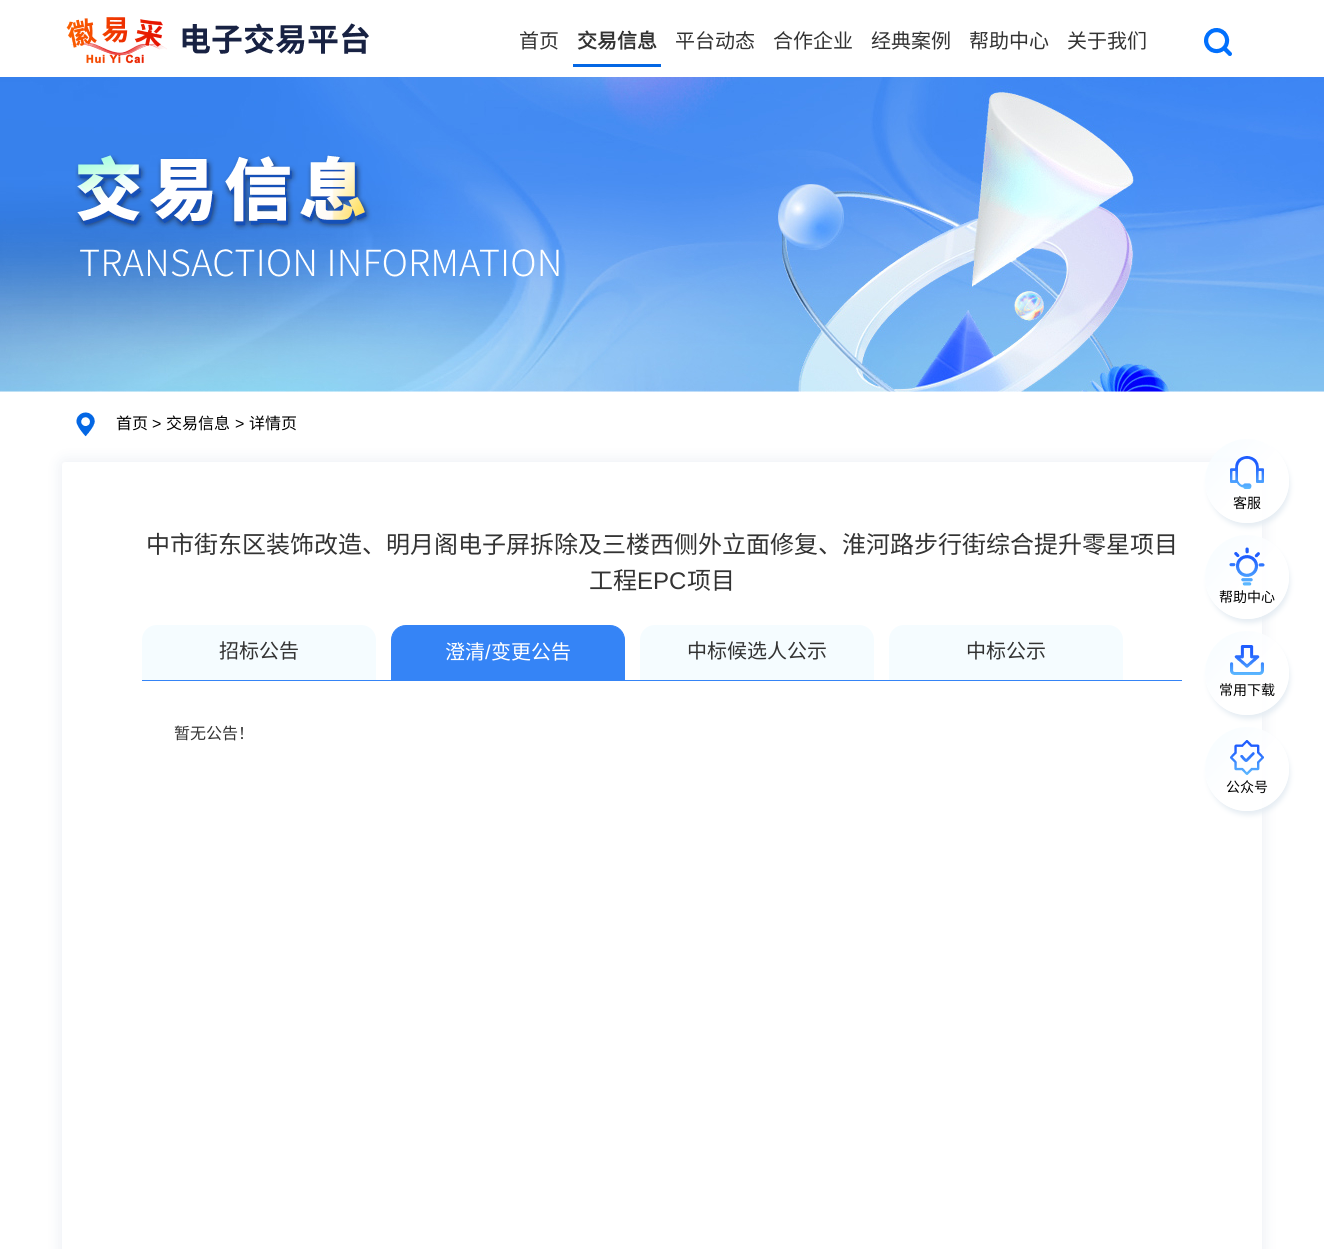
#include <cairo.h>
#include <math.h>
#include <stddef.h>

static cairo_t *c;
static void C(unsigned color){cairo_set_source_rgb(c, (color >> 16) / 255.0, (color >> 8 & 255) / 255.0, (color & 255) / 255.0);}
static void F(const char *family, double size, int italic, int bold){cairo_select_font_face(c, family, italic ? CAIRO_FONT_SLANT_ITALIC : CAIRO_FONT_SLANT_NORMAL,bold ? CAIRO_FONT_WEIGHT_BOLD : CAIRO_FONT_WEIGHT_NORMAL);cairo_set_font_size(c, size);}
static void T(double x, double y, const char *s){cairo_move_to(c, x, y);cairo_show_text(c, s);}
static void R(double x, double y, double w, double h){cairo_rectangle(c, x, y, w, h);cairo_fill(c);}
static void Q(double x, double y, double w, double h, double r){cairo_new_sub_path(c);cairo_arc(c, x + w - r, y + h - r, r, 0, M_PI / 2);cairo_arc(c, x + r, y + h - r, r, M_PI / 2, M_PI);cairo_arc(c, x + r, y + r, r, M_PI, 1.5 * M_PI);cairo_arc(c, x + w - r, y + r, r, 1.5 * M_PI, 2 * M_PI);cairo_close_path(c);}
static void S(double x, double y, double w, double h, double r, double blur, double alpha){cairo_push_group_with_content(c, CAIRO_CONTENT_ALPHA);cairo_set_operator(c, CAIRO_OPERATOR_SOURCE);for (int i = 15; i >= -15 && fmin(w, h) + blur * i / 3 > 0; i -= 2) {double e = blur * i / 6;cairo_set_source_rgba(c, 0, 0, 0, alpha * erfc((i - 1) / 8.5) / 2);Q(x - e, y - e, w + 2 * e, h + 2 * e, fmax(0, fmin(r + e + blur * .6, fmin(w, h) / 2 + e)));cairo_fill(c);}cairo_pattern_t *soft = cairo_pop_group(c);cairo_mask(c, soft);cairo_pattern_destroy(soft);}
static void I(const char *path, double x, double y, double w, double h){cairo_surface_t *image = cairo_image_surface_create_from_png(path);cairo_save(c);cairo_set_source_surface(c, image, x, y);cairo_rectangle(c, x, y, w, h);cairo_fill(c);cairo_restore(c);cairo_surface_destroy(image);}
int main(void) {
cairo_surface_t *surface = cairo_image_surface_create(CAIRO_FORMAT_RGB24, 1324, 1249);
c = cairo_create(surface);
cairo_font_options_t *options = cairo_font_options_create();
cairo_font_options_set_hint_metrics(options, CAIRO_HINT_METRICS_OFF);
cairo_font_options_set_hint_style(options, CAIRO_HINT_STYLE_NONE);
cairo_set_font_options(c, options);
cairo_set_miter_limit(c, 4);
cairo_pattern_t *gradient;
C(0xffffff);
cairo_paint(c);
I("1.png",66,17,303,47);
F("Noto Sans CJK SC",20,0,0);
C(0x333333);
T(519,48,"首页");
C(0x0467e4);
R(573,64,88,3);
F("Noto Sans CJK SC",20,0,1);
C(0x333333);
T(577,48,"交易信息");
F("Noto Sans CJK SC",20,0,0);
T(675,48,"平台动态");
T(773,48,"合作企业");
T(871,48,"经典案例");
T(969,48,"帮助中心");
T(1067,48,"关于我们");
I("2.png",1204,28,28,28);
C(0x10387a);
S(62,462,1200,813,3,7.5,.1);
C(0xffffff);
Q(62,462,1200,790,3);
cairo_fill(c);
cairo_save(c);
cairo_set_fill_rule(c,CAIRO_FILL_RULE_EVEN_ODD);
cairo_new_path(c);
cairo_move_to(c,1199,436);
cairo_line_to(c,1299,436);
cairo_line_to(c,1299,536);
cairo_line_to(c,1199,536);
cairo_close_path(c);
cairo_move_to(c,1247,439);
cairo_curve_to(c,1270,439,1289,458,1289,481);
cairo_curve_to(c,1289,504,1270,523,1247,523);
cairo_curve_to(c,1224,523,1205,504,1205,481);
cairo_curve_to(c,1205,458,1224,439,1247,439);
cairo_close_path(c);
cairo_clip(c);
C(0xe6edf3);
S(1208,445,82,82,41,2.5,1);
cairo_restore(c);
gradient = cairo_pattern_create_linear(1202,439,1291,521);
cairo_pattern_add_color_stop_rgba(gradient,0,0.961,0.988,1,.9);
cairo_pattern_add_color_stop_rgba(gradient,.51,1,1,1,.9);
cairo_set_source(c,gradient);
cairo_pattern_destroy(gradient);
cairo_arc(c,1247,481,42,0,2 * M_PI);
cairo_fill(c);
I("3.png",1230,456,34,33);
F("Noto Sans CJK SC",14,0,0);
C(0x000000);
T(1233,508,"客服");
cairo_save(c);
cairo_set_fill_rule(c,CAIRO_FILL_RULE_EVEN_ODD);
cairo_new_path(c);
cairo_move_to(c,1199,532);
cairo_line_to(c,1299,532);
cairo_line_to(c,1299,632);
cairo_line_to(c,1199,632);
cairo_close_path(c);
cairo_move_to(c,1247,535);
cairo_curve_to(c,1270,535,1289,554,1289,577);
cairo_curve_to(c,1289,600,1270,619,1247,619);
cairo_curve_to(c,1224,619,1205,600,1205,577);
cairo_curve_to(c,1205,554,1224,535,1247,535);
cairo_close_path(c);
cairo_clip(c);
C(0xe6edf3);
S(1208,541,82,82,41,2.5,1);
cairo_restore(c);
gradient = cairo_pattern_create_linear(1202,535,1291,617);
cairo_pattern_add_color_stop_rgba(gradient,0,0.961,0.988,1,.9);
cairo_pattern_add_color_stop_rgba(gradient,.51,1,1,1,.9);
cairo_set_source(c,gradient);
cairo_pattern_destroy(gradient);
cairo_arc(c,1247,577,42,0,2 * M_PI);
cairo_fill(c);
I("4.png",1229,547,36,39);
C(0x000000);
T(1219,602,"帮助中心");
cairo_save(c);
cairo_set_fill_rule(c,CAIRO_FILL_RULE_EVEN_ODD);
cairo_new_path(c);
cairo_move_to(c,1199,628);
cairo_line_to(c,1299,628);
cairo_line_to(c,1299,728);
cairo_line_to(c,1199,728);
cairo_close_path(c);
cairo_move_to(c,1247,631);
cairo_curve_to(c,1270,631,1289,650,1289,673);
cairo_curve_to(c,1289,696,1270,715,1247,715);
cairo_curve_to(c,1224,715,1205,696,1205,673);
cairo_curve_to(c,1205,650,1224,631,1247,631);
cairo_close_path(c);
cairo_clip(c);
C(0xe6edf3);
S(1208,637,82,82,41,2.5,1);
cairo_restore(c);
gradient = cairo_pattern_create_linear(1202,631,1291,713);
cairo_pattern_add_color_stop_rgba(gradient,0,0.961,0.988,1,.9);
cairo_pattern_add_color_stop_rgba(gradient,.51,1,1,1,.9);
cairo_set_source(c,gradient);
cairo_pattern_destroy(gradient);
cairo_arc(c,1247,673,42,0,2 * M_PI);
cairo_fill(c);
I("5.png",1230,645,34,30);
C(0x000000);
T(1219,695,"常用下载");
cairo_save(c);
cairo_set_fill_rule(c,CAIRO_FILL_RULE_EVEN_ODD);
cairo_new_path(c);
cairo_move_to(c,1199,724);
cairo_line_to(c,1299,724);
cairo_line_to(c,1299,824);
cairo_line_to(c,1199,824);
cairo_close_path(c);
cairo_move_to(c,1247,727);
cairo_curve_to(c,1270,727,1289,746,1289,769);
cairo_curve_to(c,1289,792,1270,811,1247,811);
cairo_curve_to(c,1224,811,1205,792,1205,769);
cairo_curve_to(c,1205,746,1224,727,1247,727);
cairo_close_path(c);
cairo_clip(c);
C(0xe6edf3);
S(1208,733,82,82,41,2.5,1);
cairo_restore(c);
gradient = cairo_pattern_create_linear(1202,727,1291,809);
cairo_pattern_add_color_stop_rgba(gradient,0,0.961,0.988,1,.9);
cairo_pattern_add_color_stop_rgba(gradient,.51,1,1,1,.9);
cairo_set_source(c,gradient);
cairo_pattern_destroy(gradient);
cairo_arc(c,1247,769,42,0,2 * M_PI);
cairo_fill(c);
I("6.png",1230,740,34,35);
C(0x000000);
T(1226,792,"公众号");
I("7.png",0,77,1324,315);
I("8.png",75,155,484,122);
I("9.png",76,412,19,25);
F("Noto Sans CJK SC",16,0,0);
T(116,429,"首页");
F("Liberation Sans",16,0,0);
T(152,429,">");
F("Noto Sans CJK SC",16,0,0);
T(166,429,"交易信息");
F("Liberation Sans",16,0,0);
T(235,429,">");
F("Noto Sans CJK SC",16,0,0);
T(249,429,"详情页");
F("Noto Sans CJK SC",24,0,0);
C(0x333333);
T(146,553,"中市街东区装饰改造、明月阁电子屏拆除及三楼西侧外立面修复、淮河路步行街综合提升零星项目");
T(589,589,"工程");
F("Liberation Sans",24,0,0);
T(637,589,"EPC");
F("Noto Sans CJK SC",24,0,0);
T(687,589,"项目");
C(0x3584f6);
R(142,680,1040,1);
C(0xf5fcff);
cairo_new_path(c);
cairo_move_to(c,157,625);
cairo_line_to(c,361,625);
cairo_curve_to(c,369.5,625,376,631.5,376,640);
cairo_line_to(c,376,680);
cairo_line_to(c,142,680);
cairo_line_to(c,142,640);
cairo_curve_to(c,142,631.5,148.5,625,157,625);
cairo_close_path(c);
cairo_fill(c);
F("Noto Sans CJK SC",20,0,0);
C(0x333333);
T(219,658,"招标公告");
C(0x3584f6);
cairo_new_path(c);
cairo_move_to(c,406,625.5);
cairo_line_to(c,610,625.5);
cairo_curve_to(c,618,625.5,624.5,632,624.5,640);
cairo_line_to(c,624.5,679.5);
cairo_line_to(c,391.5,679.5);
cairo_line_to(c,391.5,640);
cairo_curve_to(c,391.5,632,398,625.5,406,625.5);
cairo_close_path(c);
cairo_fill_preserve(c);
cairo_set_line_width(c,1);
cairo_stroke(c);
C(0xffffff);
T(445,659,"澄清");
F("Liberation Sans",20,0,0);
T(485,659,"/");
F("Noto Sans CJK SC",20,0,0);
T(491,659,"变更公告");
C(0xf5fcff);
cairo_new_path(c);
cairo_move_to(c,655,625);
cairo_line_to(c,859,625);
cairo_curve_to(c,867.5,625,874,631.5,874,640);
cairo_line_to(c,874,680);
cairo_line_to(c,640,680);
cairo_line_to(c,640,640);
cairo_curve_to(c,640,631.5,646.5,625,655,625);
cairo_close_path(c);
cairo_fill(c);
C(0x333333);
T(687,658,"中标候选人公示");
C(0xf5fcff);
cairo_new_path(c);
cairo_move_to(c,904,625);
cairo_line_to(c,1108,625);
cairo_curve_to(c,1116.5,625,1123,631.5,1123,640);
cairo_line_to(c,1123,680);
cairo_line_to(c,889,680);
cairo_line_to(c,889,640);
cairo_curve_to(c,889,631.5,895.5,625,904,625);
cairo_close_path(c);
cairo_fill(c);
C(0x333333);
T(966,658,"中标公示");
F("Noto Sans CJK SC",16,0,0);
T(174,739,"暂无公告！");
cairo_surface_write_to_png(surface, "o.png");
cairo_font_options_destroy(options);
cairo_destroy(c);
cairo_surface_destroy(surface);
return 0;
}
